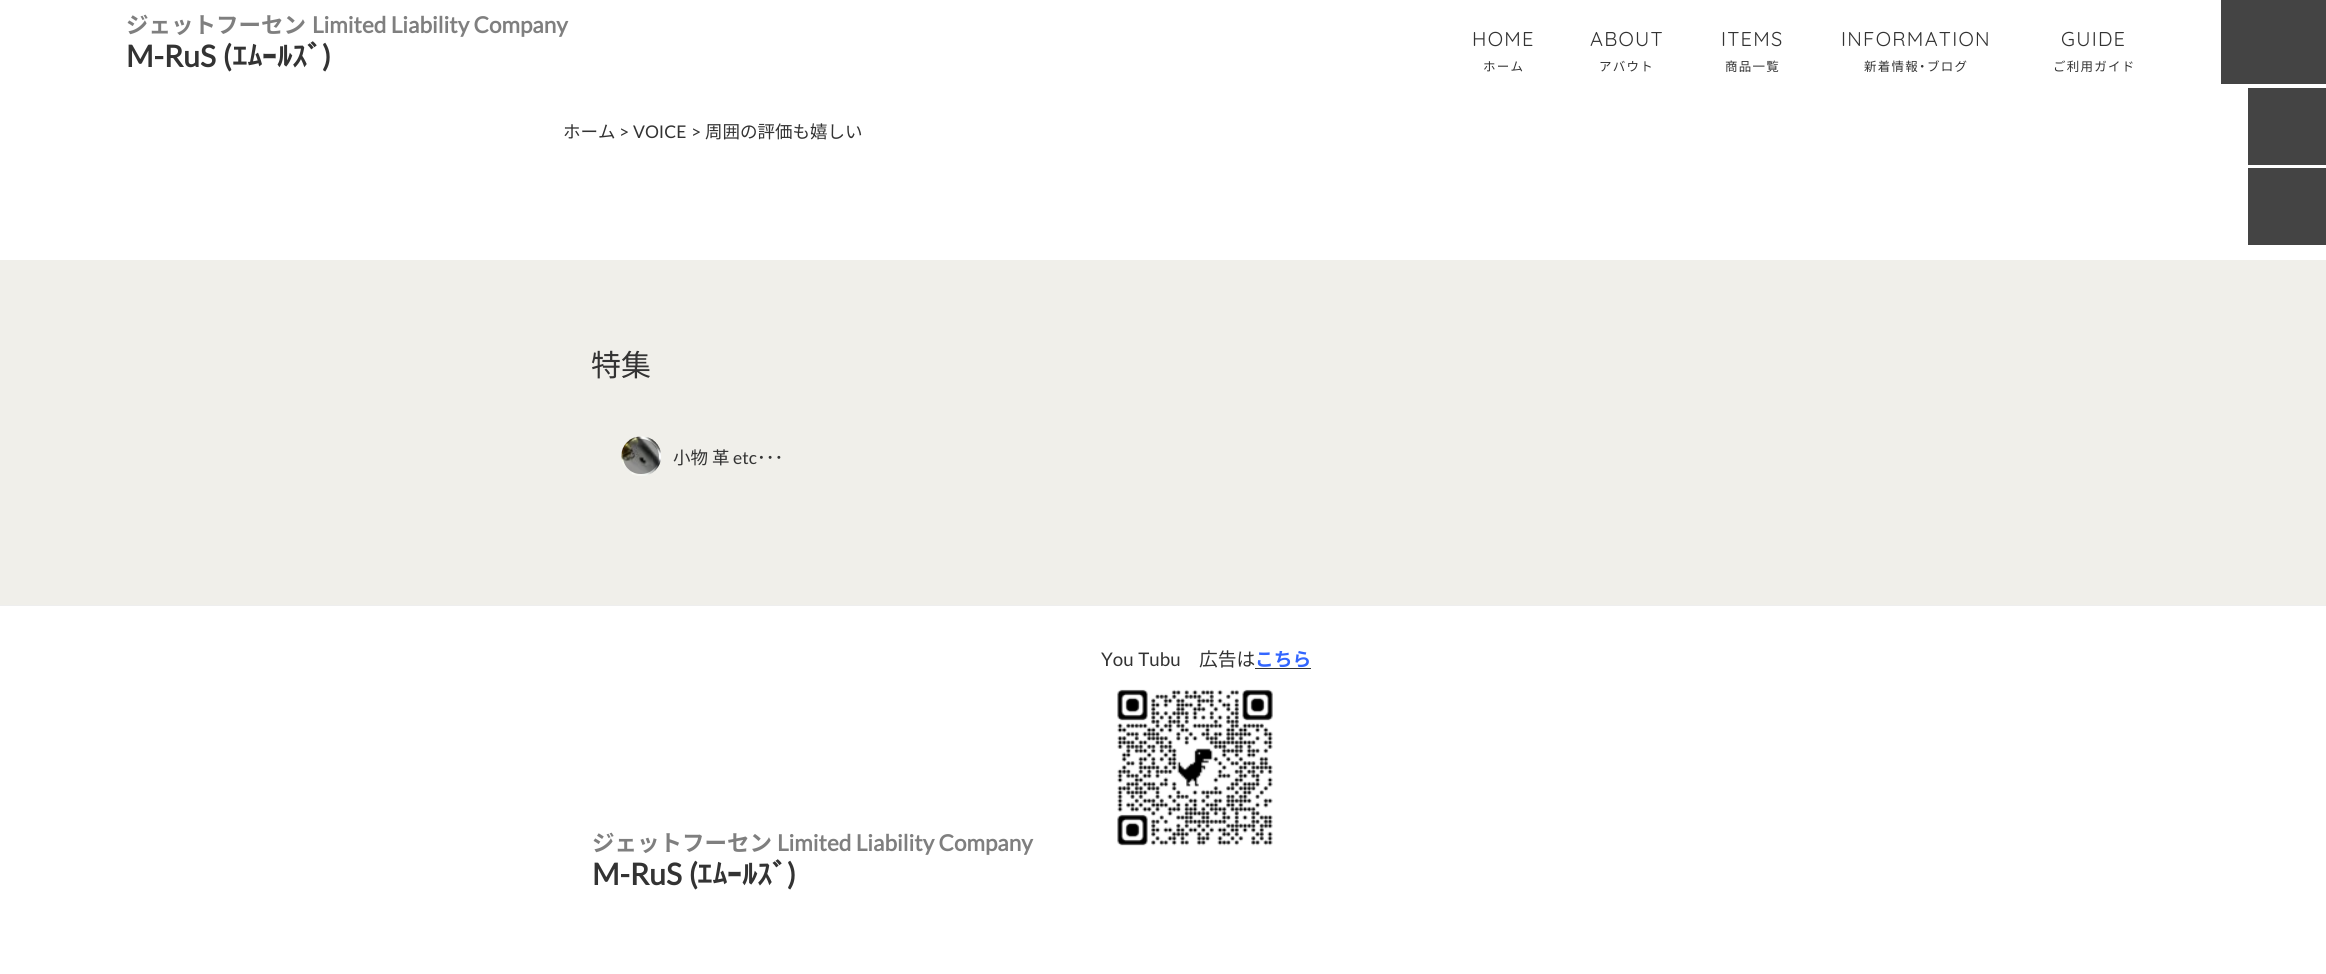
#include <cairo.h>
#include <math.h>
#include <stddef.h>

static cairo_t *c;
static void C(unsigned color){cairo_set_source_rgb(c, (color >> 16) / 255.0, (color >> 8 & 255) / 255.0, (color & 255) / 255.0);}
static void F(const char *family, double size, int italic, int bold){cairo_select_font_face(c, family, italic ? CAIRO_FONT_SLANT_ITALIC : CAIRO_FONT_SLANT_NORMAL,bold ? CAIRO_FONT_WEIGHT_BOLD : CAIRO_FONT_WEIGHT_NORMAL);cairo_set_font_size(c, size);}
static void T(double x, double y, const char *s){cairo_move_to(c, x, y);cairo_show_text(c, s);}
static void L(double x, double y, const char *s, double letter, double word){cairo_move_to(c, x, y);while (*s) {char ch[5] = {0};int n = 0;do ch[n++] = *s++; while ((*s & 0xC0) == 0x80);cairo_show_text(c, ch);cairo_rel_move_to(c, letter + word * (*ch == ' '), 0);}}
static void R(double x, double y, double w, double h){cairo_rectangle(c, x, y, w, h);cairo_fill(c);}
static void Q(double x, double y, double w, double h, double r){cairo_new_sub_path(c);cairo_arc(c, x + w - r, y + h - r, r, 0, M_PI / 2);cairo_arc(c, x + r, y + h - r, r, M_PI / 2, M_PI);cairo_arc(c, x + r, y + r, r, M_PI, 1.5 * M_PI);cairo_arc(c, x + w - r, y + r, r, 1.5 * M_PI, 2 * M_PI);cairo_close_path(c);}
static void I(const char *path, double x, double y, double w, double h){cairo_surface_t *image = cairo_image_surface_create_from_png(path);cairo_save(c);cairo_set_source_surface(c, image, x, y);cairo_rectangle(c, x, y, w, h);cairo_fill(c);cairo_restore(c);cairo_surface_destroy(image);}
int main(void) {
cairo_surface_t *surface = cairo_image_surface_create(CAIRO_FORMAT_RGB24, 2326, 974);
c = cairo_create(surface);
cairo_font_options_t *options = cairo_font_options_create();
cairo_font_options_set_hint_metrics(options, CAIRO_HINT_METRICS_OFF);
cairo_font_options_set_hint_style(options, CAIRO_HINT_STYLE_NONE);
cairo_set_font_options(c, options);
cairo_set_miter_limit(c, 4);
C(0xffffff);
cairo_paint(c);
F("Noto Sans JP",22.5,0,1);
C(0x7f7f7f);
T(126,33,"ジェットフーセン");
F("Lato",22.5,0,1);
T(312,33,"Limited Liability Company");
F("Lato",30,0,1);
C(0x333333);
L(126,67,"M-RuS (",0,1);
F("IPAPGothic",30,0,1);
T(232,67,"ｴﾑ");
F("Noto Sans JP",30,0,1);
T(262,67,"ｰ");
F("IPAPGothic",30,0,1);
T(277,67,"ﾙｽﾞ");
F("Lato",30,0,1);
T(322,67,")");
F("Quicksand",20,0,0);
L(1472,46,"HOME",1.25,0);
F("Noto Sans JP",12.5,0,0);
L(1483,71,"ホーム",1.25,0);
F("Quicksand",20,0,0);
L(1590,46,"ABOUT",1.25,0);
F("Noto Sans JP",12.5,0,0);
L(1599,71,"アバウト",1.25,0);
F("Quicksand",20,0,0);
L(1721,46,"ITEMS",1.25,0);
F("Noto Sans JP",12.5,0,0);
L(1725,71,"商品一覧",1.25,0);
F("Quicksand",20,0,0);
L(1841,46,"INFORMATION",1.25,0);
F("Noto Sans JP",12.5,0,0);
L(1864,71,"新着情報",1.25,0);
F("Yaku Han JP",12.5,0,0);
L(1919,71,"・",1.25,0);
F("Noto Sans JP",12.5,0,0);
L(1927,71,"ブログ",1.25,0);
F("Quicksand",20,0,0);
L(2061,46,"GUIDE",1.25,0);
F("Noto Sans JP",12.5,0,0);
L(2053,71,"ご利用ガイド",1.25,0);
C(0x444444);
R(2221,0,105,84);
F("Noto Sans JP",17.5,0,0);
C(0x333333);
T(563,138,"ホーム");
F("Lato",17.5,0,0);
T(619,138,">");
T(633,138,"VOICE");
T(691,138,">");
F("Noto Sans JP",17.5,0,0);
T(705,138,"周囲の評価も嬉しい");
C(0x444444);
R(2248,88,78,77);
R(2248,168,78,77);
C(0xf0efea);
R(0,260,2326,345);
F("Noto Sans JP",30,0,0);
C(0x333333);
T(591,376,"特集");
I("1.png",621,436,40,40);
cairo_set_source_rgba(c,0.039,0.039,0.039,0.4);
Q(623,439,36,35,17.5);
cairo_fill(c);
F("Noto Sans JP",17.5,0,0);
C(0x333333);
T(673,464,"小物 革");
F("Lato",17.5,0,0);
T(733,464,"etc");
F("Noto Sans JP",17.5,0,0);
T(757,464,"･･･");
C(0xeeeeee);
R(0,605,2326,1);
F("Lato",18.75,0,0);
C(0x333333);
L(1101,666,"You Tubu",0,1);
F("Noto Sans JP",18.75,0,0);
T(1199,666,"広告は");
F("Noto Sans JP",18.75,0,1);
C(0x3366ff);
T(1255,666,"こちら");
C(0x333333);
R(1255,668,56,1);
I("2.png",1117,689,156,157);
F("Noto Sans JP",22.5,0,1);
C(0x7f7f7f);
T(592,851,"ジェットフーセン");
F("Lato",22.5,0,1);
T(777,851,"Limited Liability Company");
F("Lato",30,0,1);
C(0x333333);
L(592,885,"M-RuS (",0,1);
F("IPAPGothic",30,0,1);
T(697,885,"ｴﾑ");
F("Noto Sans JP",30,0,1);
T(727,885,"ｰ");
F("IPAPGothic",30,0,1);
T(742,885,"ﾙｽﾞ");
F("Lato",30,0,1);
T(787,885,")");
cairo_surface_write_to_png(surface, "o.png");
cairo_font_options_destroy(options);
cairo_destroy(c);
cairo_surface_destroy(surface);
return 0;
}
